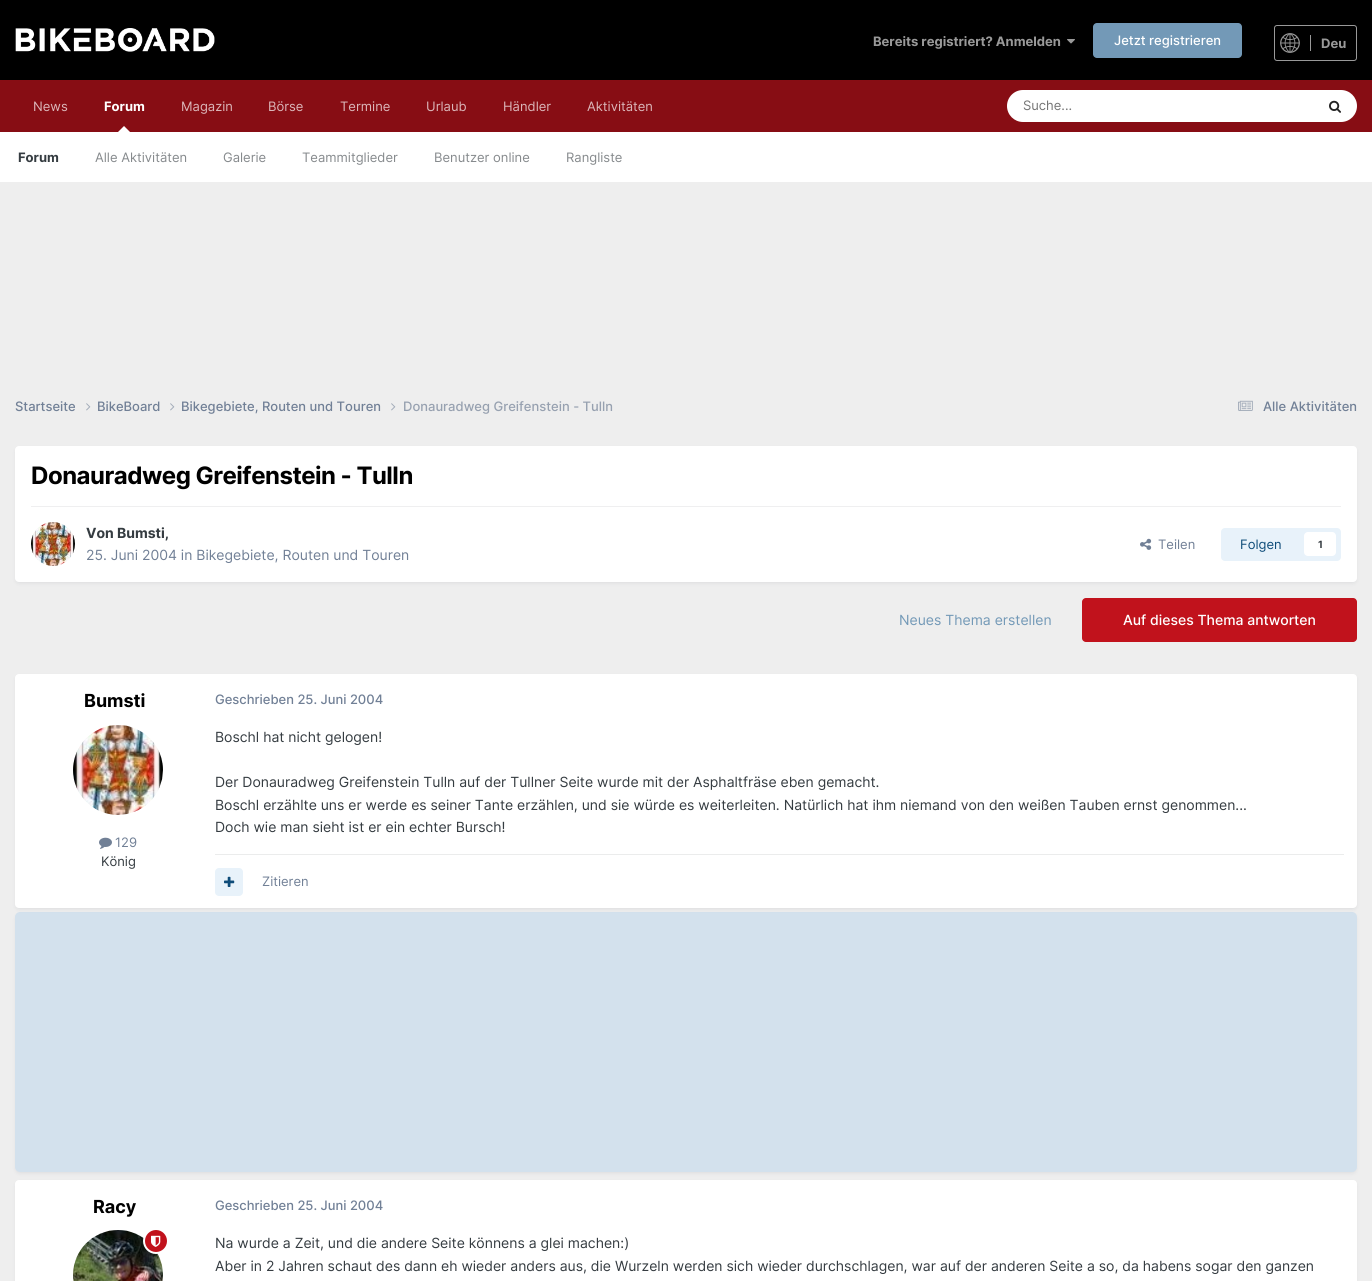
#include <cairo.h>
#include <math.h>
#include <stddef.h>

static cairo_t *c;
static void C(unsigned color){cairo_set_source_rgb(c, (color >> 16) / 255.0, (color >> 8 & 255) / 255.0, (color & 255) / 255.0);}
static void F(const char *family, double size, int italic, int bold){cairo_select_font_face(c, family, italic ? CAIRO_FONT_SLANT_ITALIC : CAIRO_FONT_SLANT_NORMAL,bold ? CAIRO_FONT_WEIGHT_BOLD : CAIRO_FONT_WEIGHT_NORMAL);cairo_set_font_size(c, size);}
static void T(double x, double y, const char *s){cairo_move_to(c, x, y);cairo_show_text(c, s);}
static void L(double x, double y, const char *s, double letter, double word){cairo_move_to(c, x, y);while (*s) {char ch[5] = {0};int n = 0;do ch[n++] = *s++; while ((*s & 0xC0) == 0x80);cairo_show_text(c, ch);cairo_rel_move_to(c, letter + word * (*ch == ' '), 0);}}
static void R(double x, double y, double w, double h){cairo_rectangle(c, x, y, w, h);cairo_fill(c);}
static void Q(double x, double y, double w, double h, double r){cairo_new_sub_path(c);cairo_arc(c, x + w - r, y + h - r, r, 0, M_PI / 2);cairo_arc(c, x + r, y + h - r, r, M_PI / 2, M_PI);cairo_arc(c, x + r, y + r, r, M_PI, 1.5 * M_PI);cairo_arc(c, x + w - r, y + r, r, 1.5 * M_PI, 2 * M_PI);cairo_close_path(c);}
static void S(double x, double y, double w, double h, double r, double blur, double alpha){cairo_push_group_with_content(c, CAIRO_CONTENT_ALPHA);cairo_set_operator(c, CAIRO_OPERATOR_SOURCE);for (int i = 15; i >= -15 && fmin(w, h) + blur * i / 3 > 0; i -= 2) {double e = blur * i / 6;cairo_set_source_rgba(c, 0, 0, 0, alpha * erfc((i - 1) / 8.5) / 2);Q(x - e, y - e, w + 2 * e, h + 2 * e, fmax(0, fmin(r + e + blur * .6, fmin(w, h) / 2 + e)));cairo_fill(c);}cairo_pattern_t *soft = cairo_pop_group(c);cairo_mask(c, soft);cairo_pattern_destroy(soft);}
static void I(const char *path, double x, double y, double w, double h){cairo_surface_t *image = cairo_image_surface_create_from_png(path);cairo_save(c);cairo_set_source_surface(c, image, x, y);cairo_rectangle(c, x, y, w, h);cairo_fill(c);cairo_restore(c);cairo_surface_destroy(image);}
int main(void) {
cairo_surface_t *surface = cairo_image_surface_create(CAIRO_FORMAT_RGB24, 1372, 1281);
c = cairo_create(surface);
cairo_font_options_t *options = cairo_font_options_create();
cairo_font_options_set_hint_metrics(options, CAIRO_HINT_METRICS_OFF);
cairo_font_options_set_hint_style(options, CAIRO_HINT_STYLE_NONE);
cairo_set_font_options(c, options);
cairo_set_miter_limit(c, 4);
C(0x000000);
cairo_paint(c);
I("1.png",15,28,200,24);
F("Inter",13,0,1);
C(0x999999);
T(873,46,"Bereits registriert? Anmelden");
I("2.png",1067,39,8,5);
C(0x7399b7);
Q(1093,23,149,35,4);
cairo_fill(c);
F("Inter Medium",13,0,0);
C(0xffffff);
T(1114,45,"Jetzt registrieren");
Q(1274.5,25.5,82,35,2.5);
C(0x999999);
cairo_set_line_width(c,1);
cairo_stroke(c);
I("3.png",1280,33,20,20);
R(1310,35,1,16);
F("Inter",13,0,1);
T(1321,48,"Deu");
C(0x870d14);
R(0,80,1372,52);
C(0xffffff);
T(104,111,"Forum");
cairo_new_path(c);
cairo_move_to(c,130,132);
cairo_line_to(c,118,132);
cairo_line_to(c,124,126);
cairo_close_path(c);
cairo_fill(c);
R(0,132,1372,50);
C(0x353c41);
T(18,162,"Forum");
F("Inter",13,0,0);
C(0x868a8d);
T(95,162,"Alle Aktivitäten");
T(223,162,"Galerie");
T(302,162,"Teammitglieder");
T(434,162,"Benutzer online");
T(566,162,"Rangliste");
C(0xdbb6b9);
T(33,111,"News");
T(181,111,"Magazin");
T(268,111,"Börse");
T(340,111,"Termine");
T(426,111,"Urlaub");
T(503,111,"Händler");
T(587,111,"Aktivitäten");
C(0xffffff);
Q(1007,90,350,32,16);
cairo_fill(c);
C(0x757575);
T(1023,110,"Suche...");
I("4.png",1329,100,12,13);
C(0xeeeeee);
R(0,182,1372,1099);
F("Inter Medium",13,0,0);
C(0x718096);
T(15,411,"Startseite");
I("5.png",86,403,5,8);
T(97,411,"BikeBoard");
I("5.png",170,403,5,8);
T(181,411,"Bikegebiete, Routen und Touren");
I("5.png",391,403,5,8);
C(0x97a1b0);
T(403,411,"Donauradweg Greifenstein - Tulln");
I("6.png",1238,400,15,11);
C(0x718096);
T(1263,411,"Alle Aktivitäten");
C(0x2d3748);
S(16,449,1340,134,3,2,.1);
C(0xffffff);
Q(15,446,1342,136,4);
cairo_fill(c);
F("Inter",24,0,1);
C(0x000000);
L(31,484,"Donauradweg Greifenstein - Tulln",-.5,0);
C(0xefeff0);
R(31,506,1310,1);
I("7.png",31,522,44,44);
F("Inter",14,0,1);
C(0x353c41);
T(86,538,"Von Bumsti,");
F("Inter",14,0,0);
C(0x718096);
T(86,560,"25. Juni 2004 in Bikegebiete, Routen und Touren");
I("8.png",1140,538,12,12);
F("Inter",13,0,0);
T(1158,549,"Teilen");
C(0xe8f2fa);
Q(1221,528,120,33,4);
cairo_fill(c);
C(0x0e4c79);
T(1240,549,"Folgen");
C(0xffffff);
Q(1304,532,32,24,4);
cairo_fill(c);
F("Inter",10,0,1);
C(0x353c41);
T(1318,548,"1");
F("Inter",14,0,0);
C(0x7399b7);
T(899,625,"Neues Thema erstellen");
C(0xc1121c);
Q(1082,598,275,44,4);
cairo_fill(c);
F("Inter Medium",14,0,0);
C(0xffffff);
T(1123,625,"Auf dieses Thema antworten");
C(0x2d3748);
S(16,915,1340,258,4,2,.1);
C(0xd3e1ed);
Q(15,912,1342,260,5);
cairo_fill(c);
C(0x2d3748);
S(16,677,1340,232,3,2,.1);
C(0xffffff);
Q(15,674,1342,234,4);
cairo_fill(c);
F("Inter",18,0,1);
C(0x000000);
T(84,707,"Bumsti");
I("9.png",73,725,90,90);
I("10.png",99,837,13,12);
F("Inter",13,0,0);
C(0x718096);
T(115,847,"129");
C(0x353c41);
T(101,866,"König");
F("Inter Medium",13,0,0);
C(0x718096);
T(215,704,"Geschrieben 25. Juni 2004");
F("Inter",14,0,0);
C(0x353c41);
T(215,742,"Boschl hat nicht gelogen!");
T(215,787,"Der Donauradweg Greifenstein Tulln auf der Tullner Seite wurde mit der Asphaltfräse eben gemacht.");
T(215,810,"Boschl erzählte uns er werde es seiner Tante erzählen, und sie würde es weiterleiten. Natürlich hat ihm niemand von den weißen Tauben ernst genommen...");
T(215,832,"Doch wie man sieht ist er ein echter Bursch!");
C(0xebecec);
R(215,854,1129,1);
C(0xe8f2fa);
Q(215,868,28,28,4);
cairo_fill(c);
I("11.png",224,876,11,11);
F("Inter",13,0,0);
C(0x718096);
T(262,886,"Zitieren");
C(0x2d3748);
S(16,1183,1340,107,3,2,.1);
C(0xffffff);
Q(15,1180,1342,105,4);
cairo_fill(c);
F("Inter",18,0,1);
C(0x000000);
T(93,1213,"Racy");
I("13.png",73,1230,90,51);
C(0xc1121c);
cairo_arc(c,156,1241,12,0,2 * M_PI);
cairo_fill_preserve(c);
C(0xffffff);
cairo_set_line_width(c,2);
cairo_stroke(c);
I("12.png",151,1235,10,12);
F("Inter Medium",13,0,0);
C(0x718096);
T(215,1210,"Geschrieben 25. Juni 2004");
F("Inter",14,0,0);
C(0x353c41);
T(215,1248,"Na wurde a Zeit, und die andere Seite könnens a glei machen:)");
T(215,1271,"Aber in 2 Jahren schaut des dann eh wieder anders aus, die Wurzeln werden sich wieder durchschlagen, war auf der anderen Seite a so, da habens sogar den ganzen");
cairo_surface_write_to_png(surface, "o.png");
cairo_font_options_destroy(options);
cairo_destroy(c);
cairo_surface_destroy(surface);
return 0;
}
